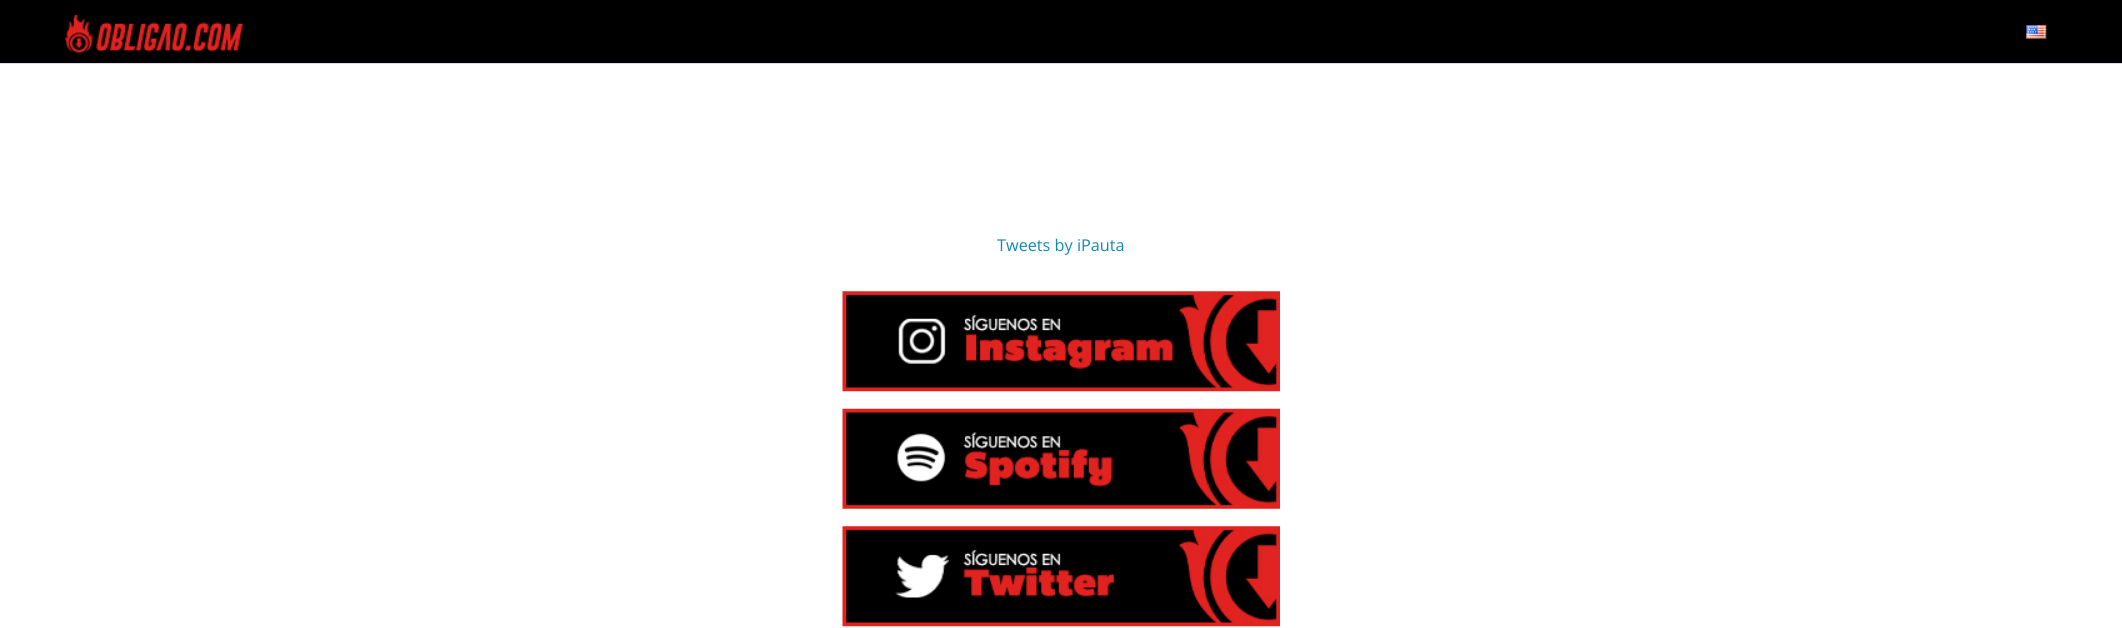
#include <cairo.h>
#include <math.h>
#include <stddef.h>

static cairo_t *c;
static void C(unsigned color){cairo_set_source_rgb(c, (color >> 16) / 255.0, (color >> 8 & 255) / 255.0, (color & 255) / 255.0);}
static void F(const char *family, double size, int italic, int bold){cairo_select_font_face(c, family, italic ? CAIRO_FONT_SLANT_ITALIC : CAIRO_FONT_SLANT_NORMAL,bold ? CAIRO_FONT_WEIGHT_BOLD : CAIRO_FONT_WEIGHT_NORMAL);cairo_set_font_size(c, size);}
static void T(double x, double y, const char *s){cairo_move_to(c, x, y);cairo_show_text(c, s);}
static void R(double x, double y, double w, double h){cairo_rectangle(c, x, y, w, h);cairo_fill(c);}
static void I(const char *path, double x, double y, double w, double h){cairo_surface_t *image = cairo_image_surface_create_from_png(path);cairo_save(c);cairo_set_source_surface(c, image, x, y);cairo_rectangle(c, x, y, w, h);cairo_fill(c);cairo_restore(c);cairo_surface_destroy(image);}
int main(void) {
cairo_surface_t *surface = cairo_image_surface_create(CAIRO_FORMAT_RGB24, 2122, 628);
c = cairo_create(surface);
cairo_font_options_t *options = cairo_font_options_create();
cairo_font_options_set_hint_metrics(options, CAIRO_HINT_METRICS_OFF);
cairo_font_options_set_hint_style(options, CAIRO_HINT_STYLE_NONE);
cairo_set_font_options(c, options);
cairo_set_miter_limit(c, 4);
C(0xffffff);
cairo_paint(c);
C(0x000000);
R(0,0,2122,63);
C(0xd9dbe4);
R(0,63,2122,1);
I("1.png",64,15,179,38);
I("2.png",2026,25,21,14);
F("Open Sans",16.25,0,0);
C(0x118bb6);
T(997,251,"Tweets by iPauta");
I("3.png",842,291,438,101);
I("4.png",842,408,438,101);
I("5.png",842,526,438,101);
cairo_surface_write_to_png(surface, "o.png");
cairo_font_options_destroy(options);
cairo_destroy(c);
cairo_surface_destroy(surface);
return 0;
}
